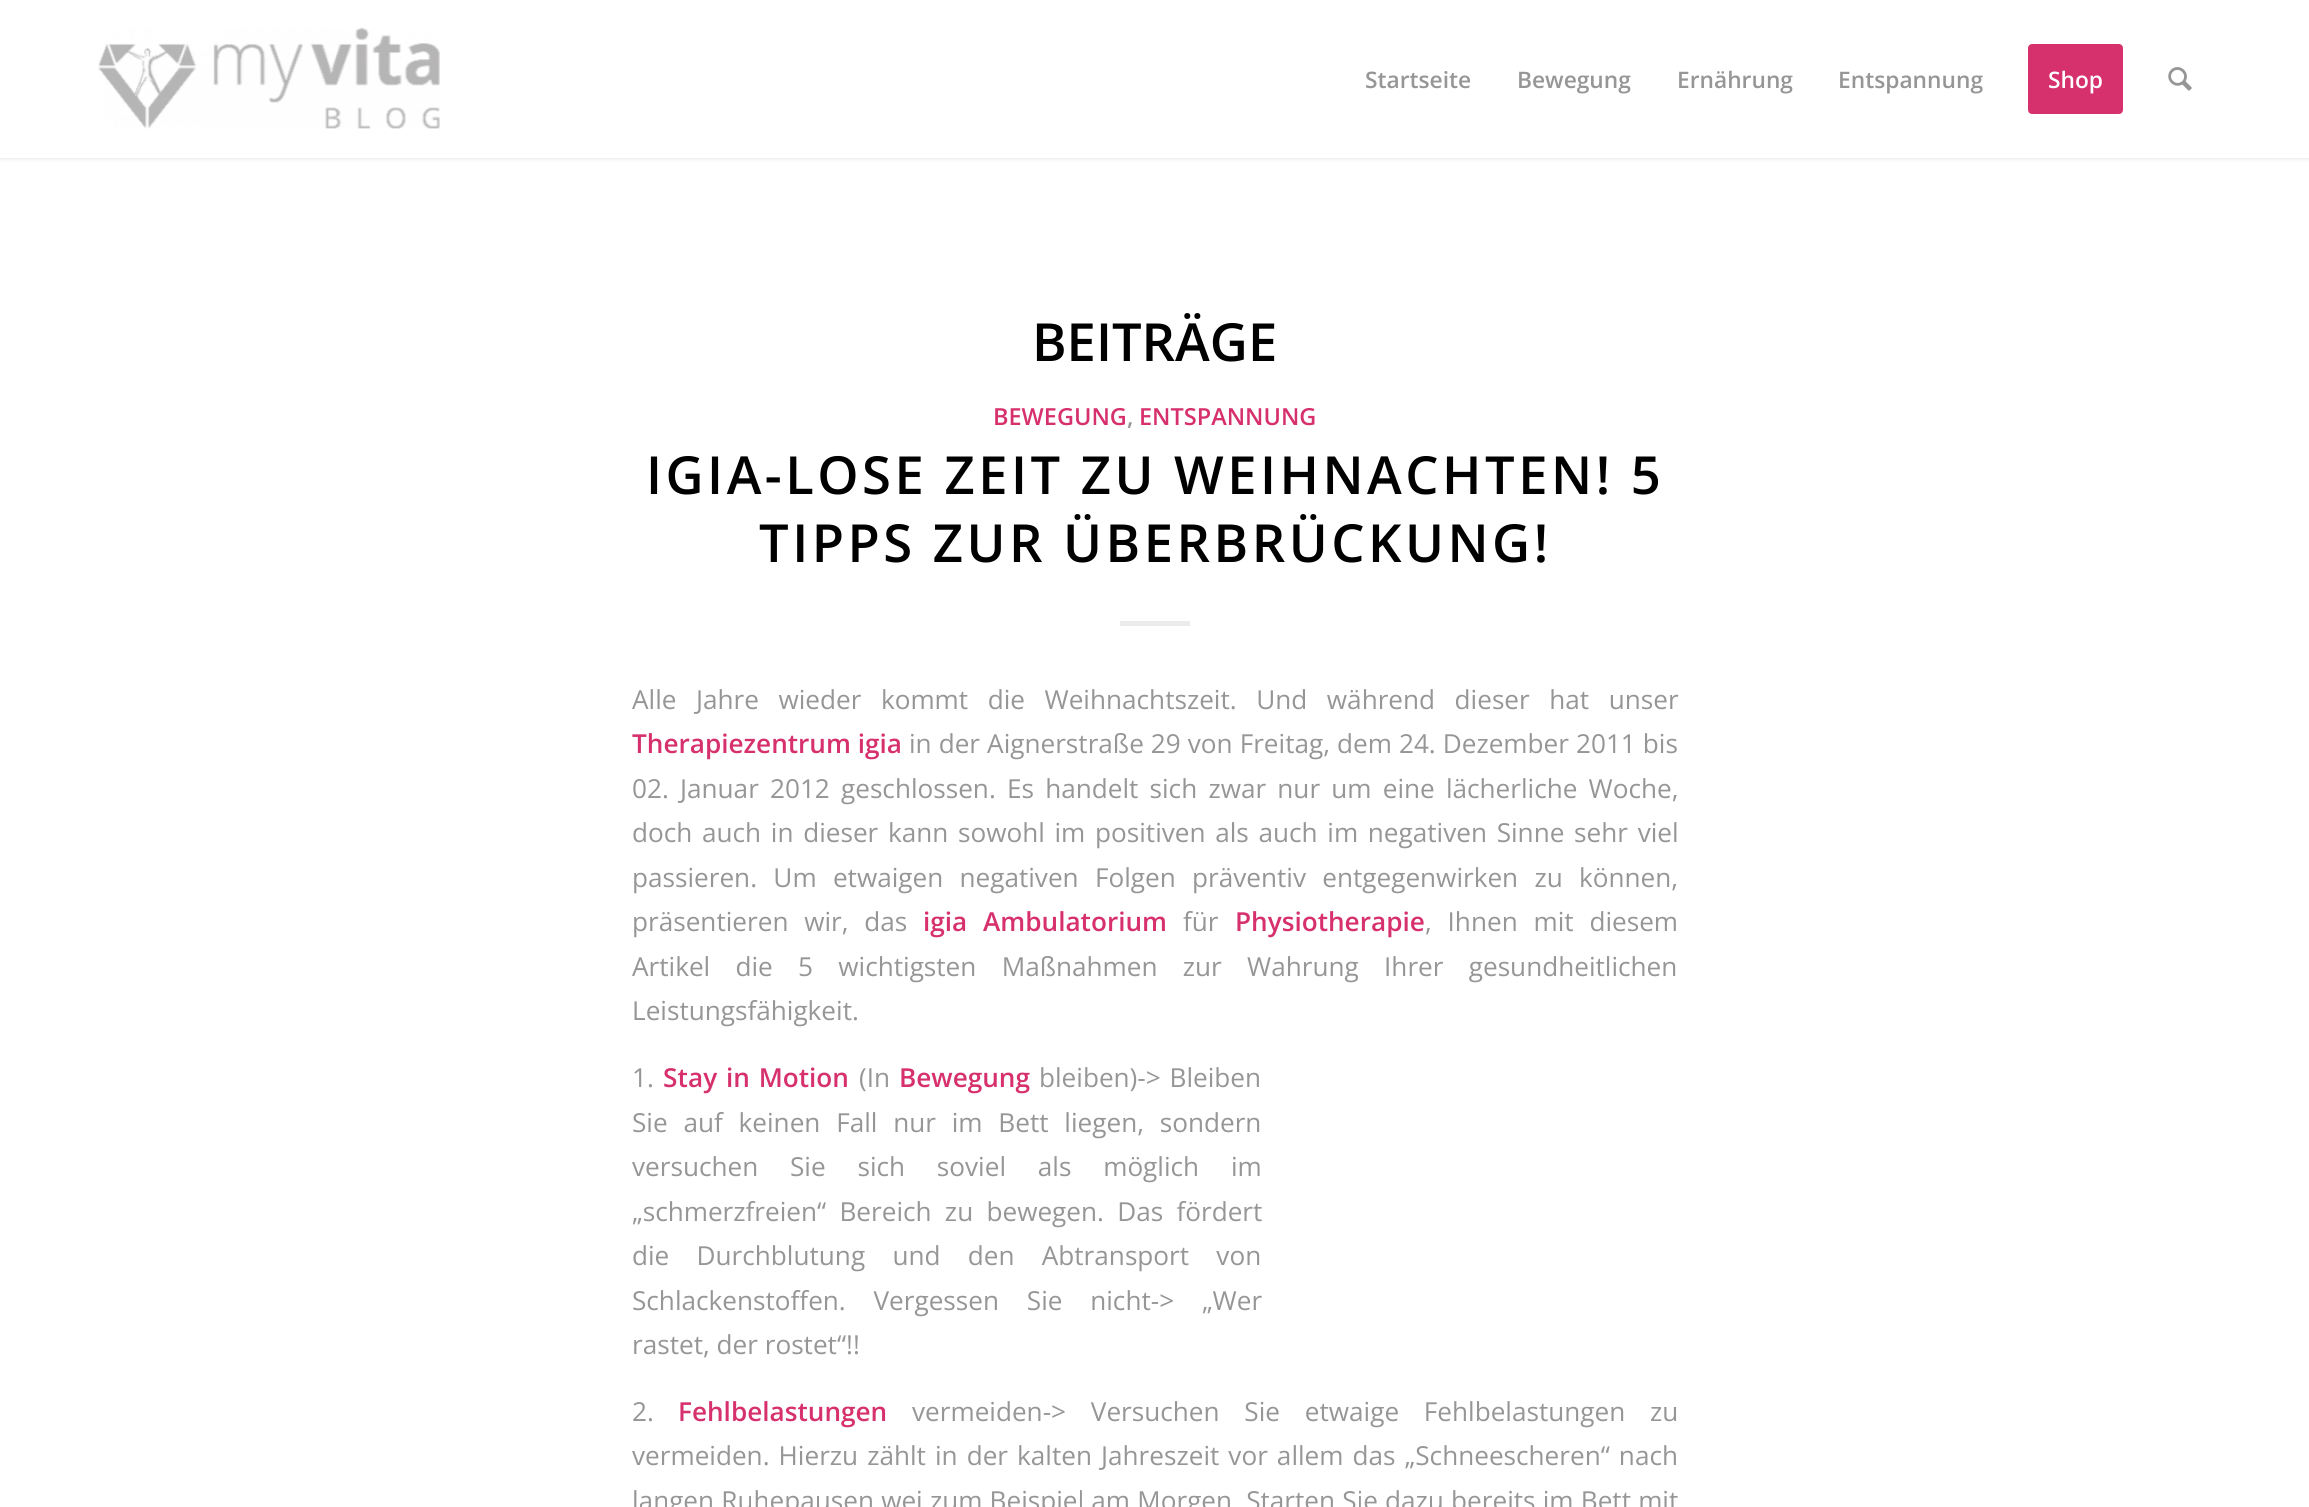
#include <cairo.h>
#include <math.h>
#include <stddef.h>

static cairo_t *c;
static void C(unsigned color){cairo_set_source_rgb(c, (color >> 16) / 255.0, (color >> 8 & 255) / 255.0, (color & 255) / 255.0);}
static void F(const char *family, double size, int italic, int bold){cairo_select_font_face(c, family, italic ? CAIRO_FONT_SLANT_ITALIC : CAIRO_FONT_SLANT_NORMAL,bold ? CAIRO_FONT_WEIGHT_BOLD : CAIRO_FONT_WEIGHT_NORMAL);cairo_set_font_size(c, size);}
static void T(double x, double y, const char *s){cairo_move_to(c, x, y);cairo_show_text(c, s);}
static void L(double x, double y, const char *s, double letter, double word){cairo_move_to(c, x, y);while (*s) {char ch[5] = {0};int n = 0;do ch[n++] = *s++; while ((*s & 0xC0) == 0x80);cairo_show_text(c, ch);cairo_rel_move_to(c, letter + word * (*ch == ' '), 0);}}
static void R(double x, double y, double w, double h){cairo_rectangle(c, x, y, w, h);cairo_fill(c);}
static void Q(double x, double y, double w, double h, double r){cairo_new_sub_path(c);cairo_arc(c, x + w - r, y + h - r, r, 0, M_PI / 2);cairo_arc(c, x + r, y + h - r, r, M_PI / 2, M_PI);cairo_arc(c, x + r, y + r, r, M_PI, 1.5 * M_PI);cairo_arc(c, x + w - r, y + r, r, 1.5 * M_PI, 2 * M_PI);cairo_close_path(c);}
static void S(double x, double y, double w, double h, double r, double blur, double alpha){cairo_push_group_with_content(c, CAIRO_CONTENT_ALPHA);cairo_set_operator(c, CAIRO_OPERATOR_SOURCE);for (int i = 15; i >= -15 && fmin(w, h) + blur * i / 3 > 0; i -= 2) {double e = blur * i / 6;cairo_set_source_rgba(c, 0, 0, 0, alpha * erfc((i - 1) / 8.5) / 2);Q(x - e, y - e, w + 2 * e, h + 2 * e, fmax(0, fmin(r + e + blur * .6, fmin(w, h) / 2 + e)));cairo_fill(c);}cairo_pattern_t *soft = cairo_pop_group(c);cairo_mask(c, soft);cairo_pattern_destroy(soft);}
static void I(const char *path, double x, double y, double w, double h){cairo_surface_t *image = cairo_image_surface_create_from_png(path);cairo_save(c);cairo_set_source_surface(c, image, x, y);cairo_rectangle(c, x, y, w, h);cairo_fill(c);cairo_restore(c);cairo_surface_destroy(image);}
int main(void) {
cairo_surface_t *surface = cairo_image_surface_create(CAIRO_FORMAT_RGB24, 2309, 1507);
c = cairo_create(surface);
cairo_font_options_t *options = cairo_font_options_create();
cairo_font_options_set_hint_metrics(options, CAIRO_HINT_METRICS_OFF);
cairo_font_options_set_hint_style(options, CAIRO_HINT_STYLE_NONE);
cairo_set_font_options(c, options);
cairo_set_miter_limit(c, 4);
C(0xffffff);
cairo_paint(c);
C(0x000000);
S(-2,-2,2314,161,0,2,.1);
C(0xffffff);
R(0,0,2309,158);
I("1.png",98,27,342,102);
F("Open Sans SemiBold",22.75,0,0);
C(0x969696);
T(1365,88,"Startseite");
T(1517,88,"Bewegung");
T(1677,88,"Ernährung");
T(1838,88,"Entspannung");
C(0xd6306d);
Q(2030,46,91,66,2);
cairo_fill_preserve(c);
cairo_set_line_width(c,4);
cairo_stroke(c);
C(0xffffff);
T(2048,88,"Shop");
I("2.png",2168,67,24,24);
F("Open Sans SemiBold",52.5,0,0);
C(0x000000);
T(1032,361,"BEITRÄGE");
F("Open Sans SemiBold",23.5,0,0);
C(0xd6306d);
T(993,425,"BEWEGUNG");
C(0x969696);
T(1127,425,",");
C(0xd6306d);
T(1139,425,"ENTSPANNUNG");
F("Open Sans SemiBold",52.5,0,0);
C(0x000000);
L(646,494,"IGIA-LOSE ZEIT ZU WEIHNACHTEN! 5",3.5,0);
L(759,562,"TIPPS ZUR ÜBERBRÜCKUNG!",3.5,0);
C(0xebebeb);
R(1120,621,70,5);
F("Open Sans",26.15,0,0);
C(0x969696);
L(632,709,"Alle Jahre wieder kommt die Weihnachtszeit. Und während dieser hat unser",0,12.75);
F("Open Sans SemiBold",26.15,0,0);
C(0xd6306d);
T(632,753,"Therapiezentrum igia");
F("Open Sans",26.15,0,0);
C(0x969696);
L(909,753,"in der Aignerstraße 29 von Freitag, dem 24. Dezember 2011 bis",0,.25);
L(632,798,"02. Januar 2012 geschlossen. Es handelt sich zwar nur um eine lächerliche Woche,",0,4.4);
L(632,842,"doch auch in dieser kann sowohl im positiven als auch im negativen Sinne sehr viel",0,2.9);
L(632,887,"passieren. Um etwaigen negativen Folgen präventiv entgegenwirken zu können,",0,9.5);
L(632,931,"präsentieren wir, das",0,9);
F("Open Sans SemiBold",26.15,0,0);
C(0xd6306d);
L(923,931,"igia Ambulatorium",0,9);
F("Open Sans",26.15,0,0);
C(0x969696);
T(1183,931,"für");
F("Open Sans SemiBold",26.15,0,0);
C(0xd6306d);
T(1235,931,"Physiotherapie");
F("Open Sans",26.15,0,0);
C(0x969696);
L(1425,931,", Ihnen mit diesem",0,9);
L(632,976,"Artikel die 5 wichtigsten Maßnahmen zur Wahrung Ihrer gesundheitlichen",0,18.5);
T(632,1020,"Leistungsfähigkeit.");
T(632,1087,"1.");
F("Open Sans SemiBold",26.15,0,0);
C(0xd6306d);
T(663,1087,"St");
L(688,1087,"ay in Motion",0,2);
F("Open Sans",26.15,0,0);
C(0x969696);
T(859,1087,"(In");
F("Open Sans SemiBold",26.15,0,0);
C(0xd6306d);
T(899,1087,"Bewegung");
F("Open Sans",26.15,0,0);
C(0x969696);
L(1039,1087,"bleiben)-> Bleiben",0,2);
L(632,1132,"Sie auf keinen Fall nur im Bett liegen, sondern",0,9);
L(632,1176,"versuchen Sie sich soviel als möglich im",0,25);
L(632,1221,"„schmerzfreien“ Bereich zu bewegen. Das fördert",0,6.5);
L(632,1265,"die Durchblutung und den Abtransport von",0,20.5);
L(632,1310,"Schlackenstoffen. Vergessen Sie nicht-> „Wer",0,21);
T(632,1354,"rastet, der rostet“!!");
T(632,1421,"2.");
F("Open Sans SemiBold",26.15,0,0);
C(0xd6306d);
T(678,1421,"Fehlbelastungen");
F("Open Sans",26.15,0,0);
C(0x969696);
L(912,1421,"vermeiden-> Versuchen Sie etwaige Fehlbelastungen zu",0,18);
L(632,1465,"vermeiden. Hierzu zählt in der kalten Jahreszeit vor allem das „Schneescheren“ nach",0,2.25);
L(632,1510,"langen Ruhepausen wei zum Beispiel am Morgen. Starten Sie dazu bereits im Bett mit",0,.4);
cairo_surface_write_to_png(surface, "o.png");
cairo_font_options_destroy(options);
cairo_destroy(c);
cairo_surface_destroy(surface);
return 0;
}
